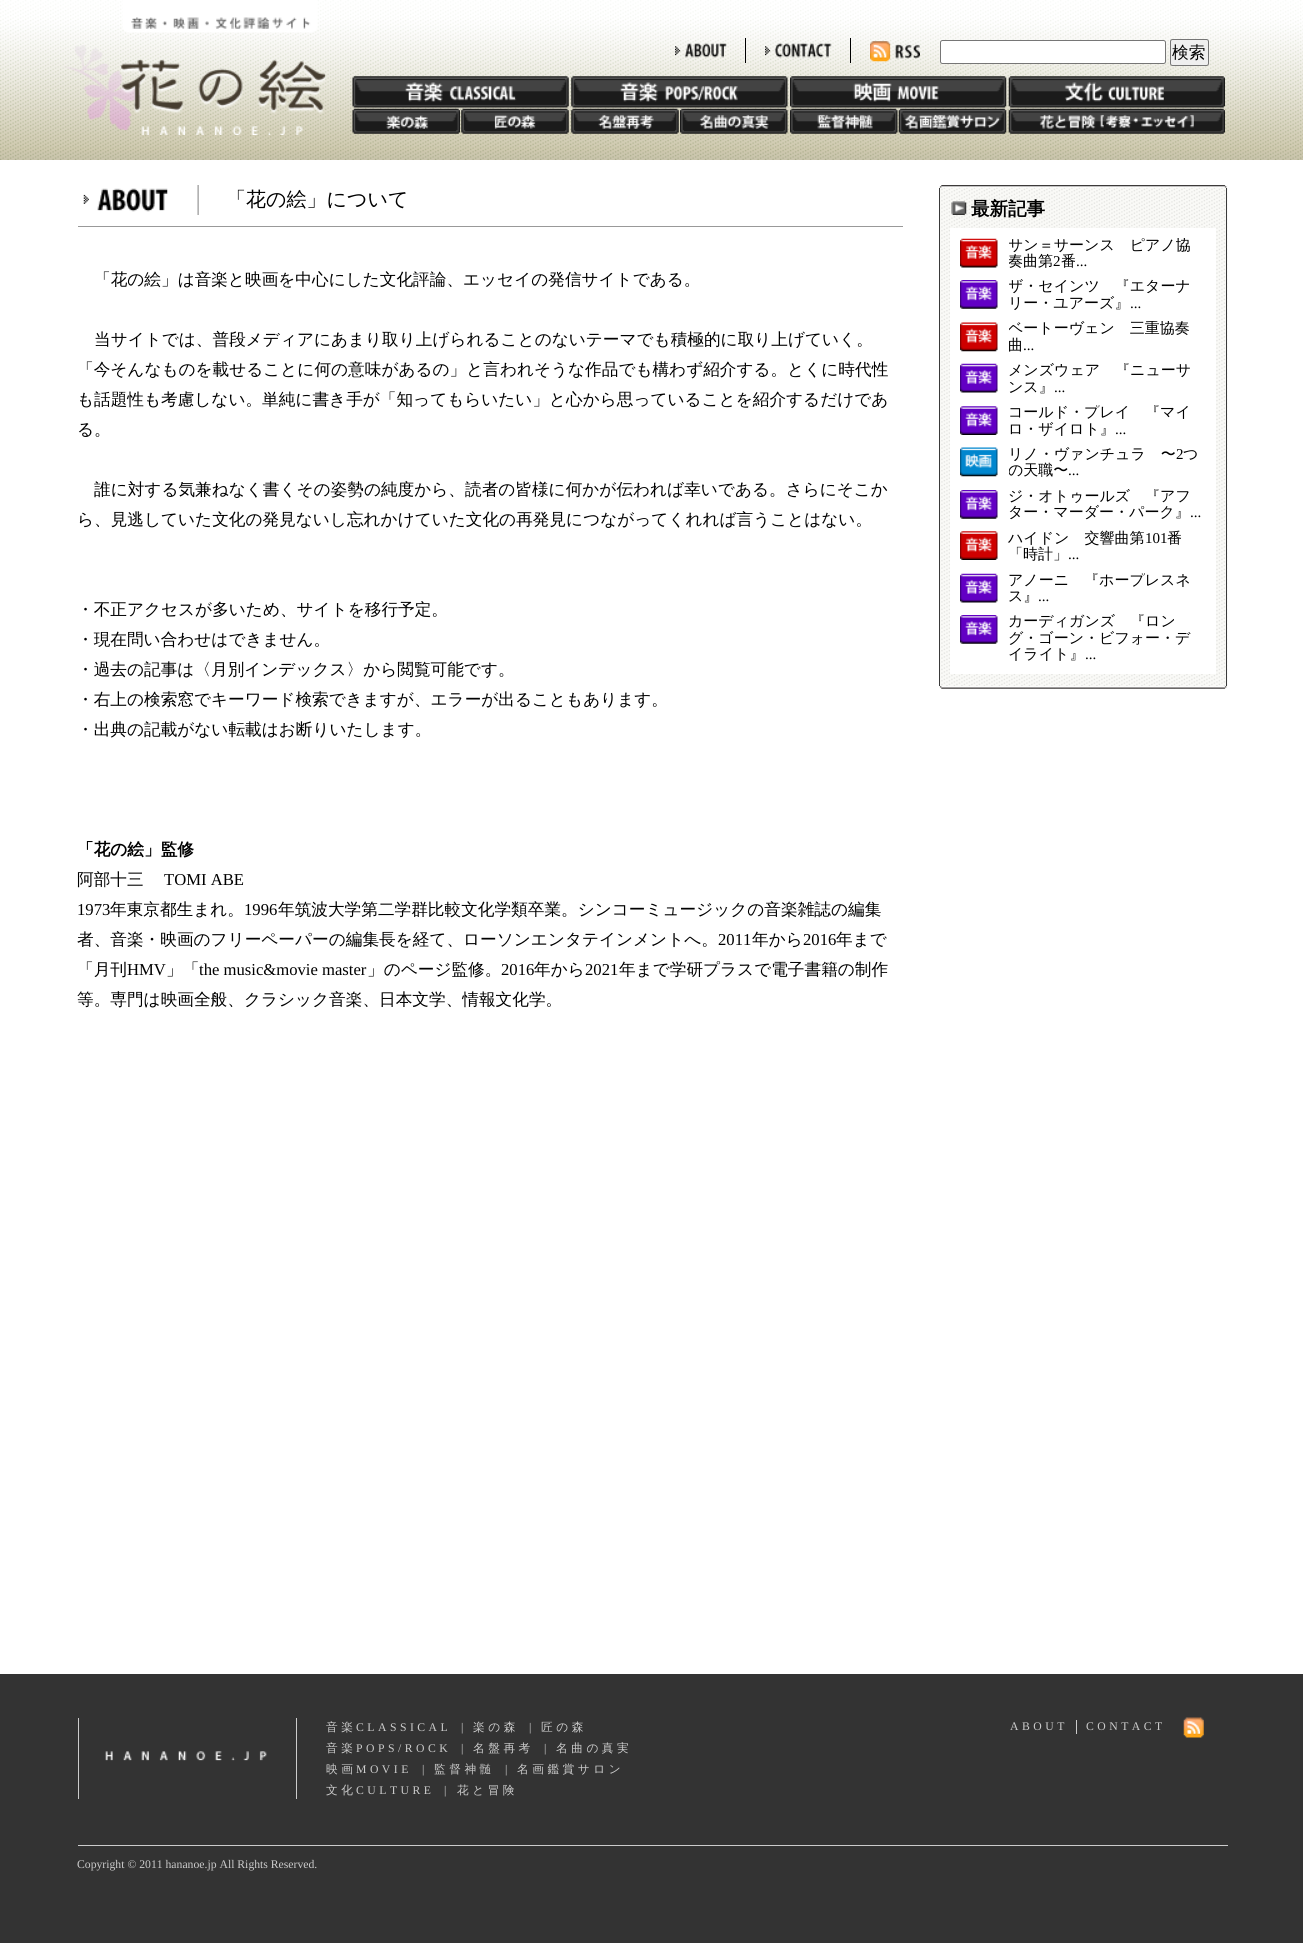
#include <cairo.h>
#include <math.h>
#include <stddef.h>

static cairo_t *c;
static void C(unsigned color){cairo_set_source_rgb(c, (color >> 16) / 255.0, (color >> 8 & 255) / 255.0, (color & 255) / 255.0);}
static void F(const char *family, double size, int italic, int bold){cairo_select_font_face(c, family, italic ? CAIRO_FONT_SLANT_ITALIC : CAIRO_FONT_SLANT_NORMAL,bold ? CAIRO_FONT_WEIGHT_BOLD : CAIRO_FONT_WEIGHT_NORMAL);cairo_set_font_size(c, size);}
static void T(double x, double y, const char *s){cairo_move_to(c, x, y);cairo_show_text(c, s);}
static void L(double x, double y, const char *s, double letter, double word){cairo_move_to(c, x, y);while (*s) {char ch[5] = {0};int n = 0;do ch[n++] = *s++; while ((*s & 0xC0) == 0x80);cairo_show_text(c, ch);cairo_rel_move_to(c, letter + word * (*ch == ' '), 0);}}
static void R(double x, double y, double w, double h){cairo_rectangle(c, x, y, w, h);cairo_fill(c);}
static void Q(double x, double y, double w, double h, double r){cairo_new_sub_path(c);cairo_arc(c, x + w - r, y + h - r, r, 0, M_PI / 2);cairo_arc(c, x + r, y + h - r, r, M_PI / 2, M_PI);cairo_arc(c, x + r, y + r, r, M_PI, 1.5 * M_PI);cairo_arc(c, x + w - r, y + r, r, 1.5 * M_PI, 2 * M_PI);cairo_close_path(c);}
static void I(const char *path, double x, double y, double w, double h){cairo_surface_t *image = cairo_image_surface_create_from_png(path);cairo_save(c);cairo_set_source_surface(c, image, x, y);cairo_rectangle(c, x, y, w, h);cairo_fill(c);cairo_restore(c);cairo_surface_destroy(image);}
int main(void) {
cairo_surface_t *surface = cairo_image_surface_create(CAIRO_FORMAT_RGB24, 1303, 1943);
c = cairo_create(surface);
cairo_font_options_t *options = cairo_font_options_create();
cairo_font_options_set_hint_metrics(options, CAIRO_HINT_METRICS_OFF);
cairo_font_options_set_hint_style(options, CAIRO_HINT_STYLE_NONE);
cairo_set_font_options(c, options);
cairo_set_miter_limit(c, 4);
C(0xffffff);
cairo_paint(c);
I("1.png",0,0,1303,160);
I("2.png",64,0,262,135);
C(0x000000);
R(745,38,1,25);
I("3.png",675,43,52,15);
R(850,38,1,25);
I("4.png",765,43,67,15);
I("5.png",870,41,50,21);
C(0xffffff);
Q(940.5,40.5,225,23,2);
cairo_fill_preserve(c);
C(0x767676);
cairo_set_line_width(c,1);
cairo_stroke(c);
C(0xefefef);
Q(1170.5,39.5,38,26,2);
cairo_fill_preserve(c);
C(0x767676);
cairo_stroke(c);
F("WenQuanYi Zen Hei Medium",16.65,0,0);
C(0x000000);
T(1172,58,"検索");
I("6.png",352,76,217,32);
I("7.png",352,108,108,26);
I("8.png",461,108,108,26);
I("9.png",571,76,217,32);
I("10.png",571,108,108,26);
I("11.png",680,108,108,26);
I("12.png",790,76,217,32);
I("13.png",790,108,108,26);
I("14.png",898,108,109,26);
I("15.png",1008,76,217,32);
I("16.png",1008,108,217,26);
C(0x999999);
R(78,226,825,1);
I("17.png",83,185,116,30);
F("WenQuanYi Zen Hei Medium",20,0,0);
C(0x000000);
T(226,206,"「花の絵」について");
F("WenQuanYi Zen Hei Medium",16.65,0,0);
T(94,285,"「花の絵」は音楽と映画を中心にした文化評論、エッセイの発信サイトである。");
T(94,345,"当サイトでは、普段メディアにあまり取り上げられることのないテーマでも積極的に取り上げていく。");
T(77,375,"「今そんなものを載せることに何の意味があるの」と言われそうな作品でも構わず紹介する。とくに時代性");
T(77,405,"も話題性も考慮しない。単純に書き手が「知ってもらいたい」と心から思っていることを紹介するだけであ");
T(77,435,"る。");
T(94,495,"誰に対する気兼ねなく書くその姿勢の純度から、読者の皆様に何かが伝われば幸いである。さらにそこか");
T(77,525,"ら、見逃していた文化の発見ないし忘れかけていた文化の再発見につながってくれれば言うことはない。");
T(77,615,"・不正アクセスが多いため、サイトを移行予定。");
T(77,645,"・現在問い合わせはできません。");
T(77,675,"・過去の記事は〈月別インデックス〉から閲覧可能です。");
T(77,705,"・右上の検索窓でキーワード検索できますが、エラーが出ることもあります。");
T(77,735,"・出典の記載がない転載はお断りいたします。");
F("WenQuanYi Zen Hei",16.65,0,1);
T(77,855,"「花の絵」監修");
F("WenQuanYi Zen Hei Medium",16.65,0,0);
T(77,885,"阿部十三");
F("Liberation Serif",16.65,0,0);
T(164,885,"TOMI ABE");
T(77,915,"1973");
F("WenQuanYi Zen Hei Medium",16.65,0,0);
T(110,915,"年東京都生まれ。");
F("Liberation Serif",16.65,0,0);
T(244,915,"1996");
F("WenQuanYi Zen Hei Medium",16.65,0,0);
T(278,915,"年筑波大学第二学群比較文化学類卒業。シンコーミュージックの音楽雑誌の編集");
T(77,945,"者、音楽・映画のフリーペーパーの編集長を経て、ローソンエンタテインメントへ。");
F("Liberation Serif",16.65,0,0);
T(718,945,"2011");
F("WenQuanYi Zen Hei Medium",16.65,0,0);
T(752,945,"年から");
F("Liberation Serif",16.65,0,0);
T(803,945,"2016");
F("WenQuanYi Zen Hei Medium",16.65,0,0);
T(836,945,"年まで");
T(77,975,"「月刊");
F("Liberation Serif",16.65,0,0);
T(127,975,"HMV");
F("WenQuanYi Zen Hei Medium",16.65,0,0);
T(166,975,"」「");
F("Liberation Serif",16.65,0,0);
T(199,975,"the music&movie master");
F("WenQuanYi Zen Hei Medium",16.65,0,0);
T(367,975,"」のページ監修。");
F("Liberation Serif",16.65,0,0);
T(501,975,"2016");
F("WenQuanYi Zen Hei Medium",16.65,0,0);
T(534,975,"年から");
F("Liberation Serif",16.65,0,0);
T(585,975,"2021");
F("WenQuanYi Zen Hei Medium",16.65,0,0);
T(619,975,"年まで学研プラスで電子書籍の制作");
T(77,1005,"等。専門は映画全般、クラシック音楽、日本文学、情報文化学。");
I("18.png",939,185,289,504);
I("19.png",939,185,289,3);
C(0x3a3a3a);
R(1226,188,1,498);
R(939,188,1,498);
I("20.png",951,201,16,14);
F("WenQuanYi Zen Hei",18.5,0,1);
C(0x000000);
T(971,215,"最新記事");
C(0xffffff);
R(950,228,266,446);
I("21.png",960,238,38,30);
cairo_save(c);
cairo_rectangle(c,1009,238,195,32);
cairo_clip(c);
F("WenQuanYi Zen Hei Medium",15,0,0);
C(0x000000);
T(1008,250,"サン＝サーンス　ピアノ協");
T(1008,266,"奏曲第");
cairo_restore(c);
F("Liberation Serif",15,0,0);
C(0x000000);
T(1053,266,"2");
F("WenQuanYi Zen Hei Medium",15,0,0);
T(1061,266,"番");
F("Liberation Serif",15,0,0);
T(1076,266,"...");
I("22.png",960,280,38,29);
cairo_save(c);
cairo_rectangle(c,1009,279,195,34);
cairo_clip(c);
F("WenQuanYi Zen Hei Medium",15,0,0);
T(1008,291,"ザ・セインツ　『エターナ");
cairo_restore(c);
F("WenQuanYi Zen Hei Medium",15,0,0);
T(1008,308,"リー・ユアーズ』");
F("Liberation Serif",15,0,0);
T(1130,308,"...");
I("23.png",960,322,38,30);
cairo_save(c);
cairo_rectangle(c,1009,321,195,33);
cairo_clip(c);
F("WenQuanYi Zen Hei Medium",15,0,0);
T(1008,333,"ベートーヴェン　三重協奏");
cairo_restore(c);
F("WenQuanYi Zen Hei Medium",15,0,0);
T(1008,350,"曲");
F("Liberation Serif",15,0,0);
T(1023,350,"...");
I("24.png",960,363,38,30);
cairo_save(c);
cairo_rectangle(c,1009,363,195,33);
cairo_clip(c);
F("WenQuanYi Zen Hei Medium",15,0,0);
T(1008,375,"メンズウェア　『ニューサ");
cairo_restore(c);
F("WenQuanYi Zen Hei Medium",15,0,0);
T(1008,392,"ンス』");
F("Liberation Serif",15,0,0);
T(1054,392,"...");
I("25.png",960,406,38,29);
cairo_save(c);
cairo_rectangle(c,1009,405,195,33);
cairo_clip(c);
F("WenQuanYi Zen Hei Medium",15,0,0);
T(1008,417,"コールド・プレイ　『マイ");
cairo_restore(c);
F("WenQuanYi Zen Hei Medium",15,0,0);
T(1008,434,"ロ・ザイロト』");
F("Liberation Serif",15,0,0);
T(1115,434,"...");
I("26.png",960,447,38,30);
F("WenQuanYi Zen Hei Medium",15,0,0);
T(1008,459,"リノ・ヴァンチュラ　〜");
F("Liberation Serif",15,0,0);
T(1176,459,"2");
F("WenQuanYi Zen Hei Medium",15,0,0);
T(1183,459,"つ");
cairo_save(c);
cairo_rectangle(c,1009,446,195,34);
cairo_clip(c);
T(1008,475,"の天職〜");
cairo_restore(c);
F("Liberation Serif",15,0,0);
T(1068,475,"...");
I("27.png",960,490,38,29);
cairo_save(c);
cairo_rectangle(c,1009,489,195,32);
cairo_clip(c);
F("WenQuanYi Zen Hei Medium",15,0,0);
T(1008,501,"ジ・オトゥールズ　『アフ");
cairo_restore(c);
F("WenQuanYi Zen Hei Medium",15,0,0);
T(1008,517,"ター・マーダー・パーク』");
F("Liberation Serif",15,0,0);
T(1190,517,"...");
I("28.png",960,531,38,29);
F("WenQuanYi Zen Hei Medium",15,0,0);
T(1008,543,"ハイドン　交響曲第");
F("Liberation Serif",15,0,0);
T(1145,543,"101");
F("WenQuanYi Zen Hei Medium",15,0,0);
T(1167,543,"番");
T(1008,559,"「時計」");
F("Liberation Serif",15,0,0);
T(1068,559,"...");
I("29.png",960,573,38,30);
cairo_save(c);
cairo_rectangle(c,1009,573,195,32);
cairo_clip(c);
F("WenQuanYi Zen Hei Medium",15,0,0);
T(1008,585,"アノーニ　『ホープレスネ");
cairo_restore(c);
F("WenQuanYi Zen Hei Medium",15,0,0);
T(1008,601,"ス』");
F("Liberation Serif",15,0,0);
T(1038,601,"...");
I("27.png",960,615,38,29);
cairo_save(c);
cairo_rectangle(c,1009,614,195,50);
cairo_clip(c);
F("WenQuanYi Zen Hei Medium",15,0,0);
T(1008,626,"カーディガンズ　『ロン");
cairo_restore(c);
F("WenQuanYi Zen Hei Medium",15,0,0);
T(1008,643,"グ・ゴーン・ビフォー・デ");
T(1008,659,"イライト』");
F("Liberation Serif",15,0,0);
T(1085,659,"...");
I("30.png",939,686,289,3);
C(0x333333);
R(0,1674,1303,269);
I("31.png",105,1751,162,10);
C(0xcccccc);
R(296,1718,1,81);
R(78,1718,1,81);
F("WenQuanYi Zen Hei Medium",11.7,0,0);
L(326,1731,"音楽",3.5,0);
F("Liberation Serif",11.7,0,0);
L(356,1731,"CLASSICAL",3.5,0);
T(461,1731,"|");
F("WenQuanYi Zen Hei Medium",11.7,0,0);
L(473,1731,"楽の森",3.5,0);
F("Liberation Serif",11.7,0,0);
T(529,1731,"|");
F("WenQuanYi Zen Hei Medium",11.7,0,0);
L(541,1731,"匠の森",3.5,0);
L(326,1752,"音楽",3.5,0);
F("Liberation Serif",11.7,0,0);
L(356,1752,"POPS/ROCK",3.5,0);
T(461,1752,"|");
F("WenQuanYi Zen Hei Medium",11.7,0,0);
L(473,1752,"名盤再考",3.5,0);
F("Liberation Serif",11.7,0,0);
T(544,1752,"|");
F("WenQuanYi Zen Hei Medium",11.7,0,0);
L(556,1752,"名曲の真実",3.5,0);
L(326,1773,"映画",3.5,0);
F("Liberation Serif",11.7,0,0);
L(356,1773,"MOVIE",3.5,0);
T(422,1773,"|");
F("WenQuanYi Zen Hei Medium",11.7,0,0);
L(434,1773,"監督神髄",3.5,0);
F("Liberation Serif",11.7,0,0);
T(505,1773,"|");
F("WenQuanYi Zen Hei Medium",11.7,0,0);
L(517,1773,"名画鑑賞サロン",3.5,0);
L(326,1794,"文化",3.5,0);
F("Liberation Serif",11.7,0,0);
L(356,1794,"CULTURE",3.5,0);
T(444,1794,"|");
F("WenQuanYi Zen Hei Medium",11.7,0,0);
L(457,1794,"花と冒険",3.5,0);
R(1076,1720,1,14);
F("Liberation Serif",11.7,0,0);
L(1010,1730,"ABOUT",3.5,0);
L(1086,1730,"CONTACT",3.5,0);
I("32.png",1183,1717,21,21);
R(78,1845,1150,1);
T(77,1868,"Copyright © 2011 hananoe.jp All Rights Reserved.");
cairo_surface_write_to_png(surface, "o.png");
cairo_font_options_destroy(options);
cairo_destroy(c);
cairo_surface_destroy(surface);
return 0;
}
